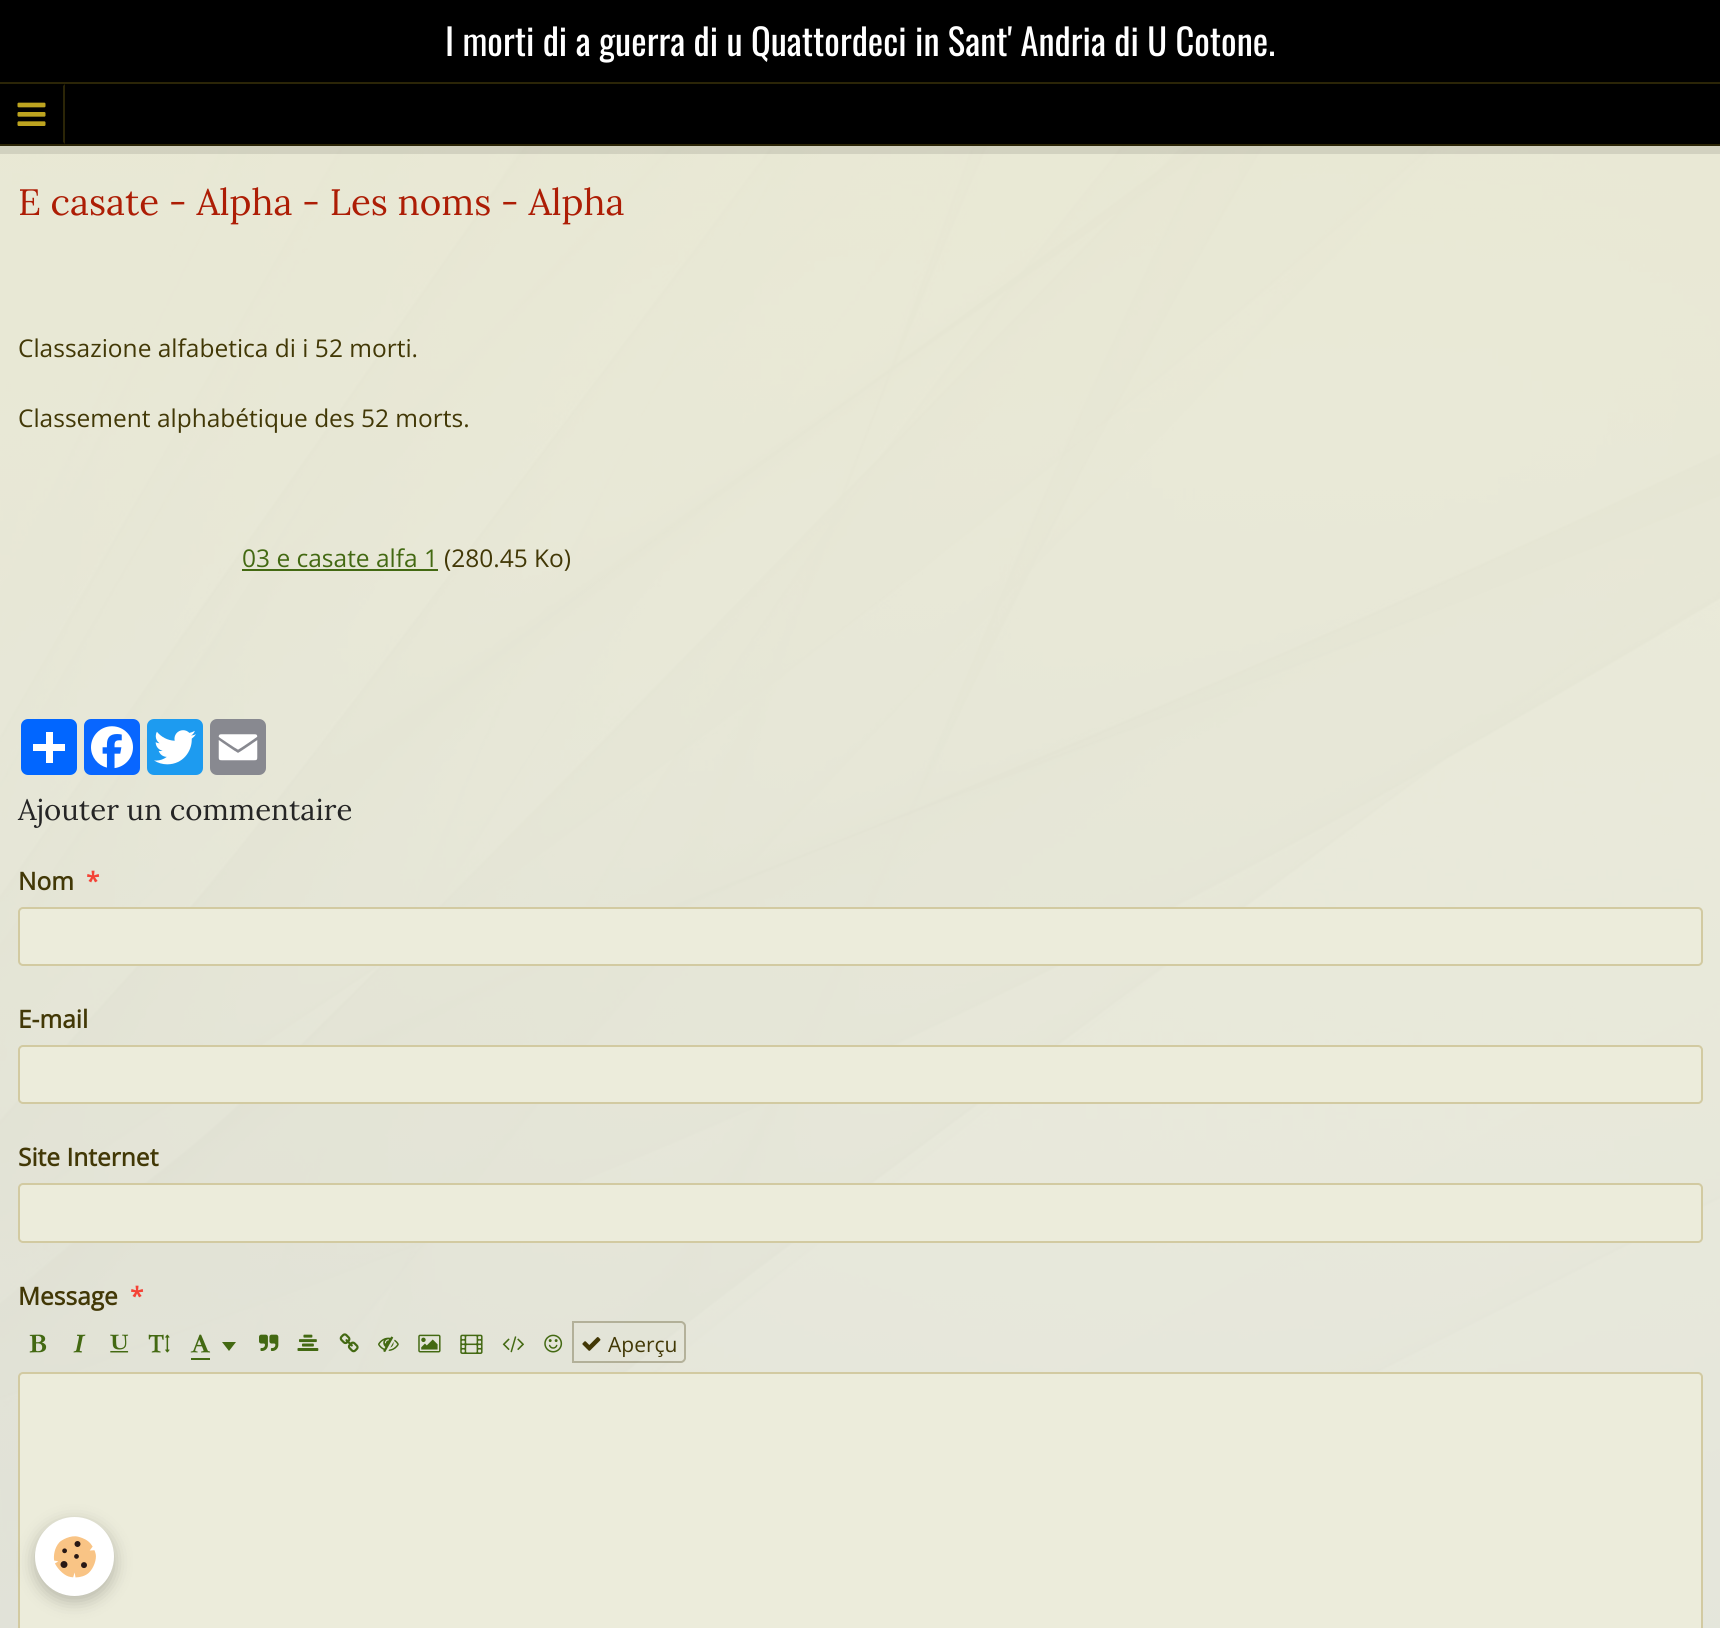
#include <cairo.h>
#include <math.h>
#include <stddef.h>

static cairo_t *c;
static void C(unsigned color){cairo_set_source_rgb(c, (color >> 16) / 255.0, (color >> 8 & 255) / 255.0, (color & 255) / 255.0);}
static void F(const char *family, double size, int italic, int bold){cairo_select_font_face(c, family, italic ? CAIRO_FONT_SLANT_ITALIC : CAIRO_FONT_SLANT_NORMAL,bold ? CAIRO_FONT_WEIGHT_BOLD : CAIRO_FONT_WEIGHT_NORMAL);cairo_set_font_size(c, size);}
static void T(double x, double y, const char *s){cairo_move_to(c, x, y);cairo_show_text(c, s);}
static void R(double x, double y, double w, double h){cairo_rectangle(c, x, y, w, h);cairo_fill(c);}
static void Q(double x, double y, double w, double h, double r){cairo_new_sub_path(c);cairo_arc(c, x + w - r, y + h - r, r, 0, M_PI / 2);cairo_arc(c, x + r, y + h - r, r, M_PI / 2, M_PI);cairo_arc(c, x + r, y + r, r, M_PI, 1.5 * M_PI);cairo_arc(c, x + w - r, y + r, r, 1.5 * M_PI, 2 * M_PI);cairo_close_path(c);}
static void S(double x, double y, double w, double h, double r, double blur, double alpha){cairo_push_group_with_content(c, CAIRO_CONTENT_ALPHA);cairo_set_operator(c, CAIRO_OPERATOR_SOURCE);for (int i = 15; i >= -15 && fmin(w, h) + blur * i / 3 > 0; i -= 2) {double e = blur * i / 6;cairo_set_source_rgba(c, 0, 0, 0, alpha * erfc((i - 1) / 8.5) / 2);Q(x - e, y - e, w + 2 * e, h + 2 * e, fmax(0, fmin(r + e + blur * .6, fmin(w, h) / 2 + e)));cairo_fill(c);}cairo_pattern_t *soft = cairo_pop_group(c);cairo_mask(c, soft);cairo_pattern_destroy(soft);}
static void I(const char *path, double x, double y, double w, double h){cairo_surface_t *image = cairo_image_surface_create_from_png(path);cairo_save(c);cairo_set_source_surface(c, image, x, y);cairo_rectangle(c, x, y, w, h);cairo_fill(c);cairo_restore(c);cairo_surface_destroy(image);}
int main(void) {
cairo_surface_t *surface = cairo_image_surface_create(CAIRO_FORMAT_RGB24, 1720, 1628);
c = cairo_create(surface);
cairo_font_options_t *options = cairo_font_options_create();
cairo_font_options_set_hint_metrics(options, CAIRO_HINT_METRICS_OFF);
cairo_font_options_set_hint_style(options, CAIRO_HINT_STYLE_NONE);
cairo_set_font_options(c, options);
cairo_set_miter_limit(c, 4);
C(0xffffff);
cairo_paint(c);
I("1.png",0,146,1720,1482);
cairo_set_source_rgba(c,0,0,0,0.1);
R(0,146,1720,8);
C(0x000000);
R(0,0,1720,144);
F("Oswald",36.6,0,0);
C(0xffffff);
T(445,56,"I morti di a guerra di u Quattordeci in Sant' Andria di U Cotone.");
C(0x2b2507);
R(0,82,1720,2);
R(0,144,1720,2);
cairo_new_path(c);
cairo_move_to(c,65,84);
cairo_line_to(c,65,144);
cairo_line_to(c,63,142);
cairo_line_to(c,63,86);
cairo_close_path(c);
cairo_fill(c);
I("2.png",17,102,29,24);
F("Lora",36.75,0,0);
C(0xad1d05);
T(18,215,"E casate - Alpha - Les noms - Alpha");
F("Open Sans",24.5,0,0);
C(0x423806);
T(18,357,"Classazione alfabetica di i 52 morti.");
T(18,427,"Classement alphabétique des 52 morts.");
C(0x436912);
T(242,567,"03 e casate alfa 1");
R(242,569,196,2);
C(0x423806);
T(444,567,"(280.45 Ko)");
C(0x0166ff);
Q(21,719,56,56,7);
cairo_fill(c);
C(0xffffff);
R(46,732,7,31);
R(33,744,32,7);
C(0x0866ff);
Q(84,719,56,56,7);
cairo_fill(c);
I("3.png",91,726,42,43);
C(0x1d9bf0);
Q(147,719,56,56,7);
cairo_fill(c);
I("4.png",154,730,42,35);
C(0x888990);
Q(210,719,56,56,7);
cairo_fill(c);
I("5.png",218,734,40,27);
F("Lora",29.4,0,0);
C(0x252525);
T(18,820,"Ajouter un commentaire");
F("Open Sans",24.5,0,1);
C(0x423806);
T(18,890,"Nom");
C(0xf44336);
T(86,890,"*");
C(0xececdb);
Q(19,908,1683,57,4);
cairo_fill_preserve(c);
C(0xd2caa1);
cairo_stroke(c);
C(0x423806);
T(18,1028,"E-mail");
C(0xececdb);
Q(19,1046,1683,57,4);
cairo_fill_preserve(c);
C(0xd2caa1);
cairo_stroke(c);
C(0x423806);
T(18,1166,"Site Internet");
C(0xececdb);
Q(19,1184,1683,58,4);
cairo_fill_preserve(c);
C(0xd2caa1);
cairo_stroke(c);
C(0x423806);
T(18,1305,"Message");
C(0xf44336);
T(130,1305,"*");
I("6.png",29,1334,18,19);
I("7.png",73,1334,13,19);
I("8.png",110,1334,19,19);
I("9.png",148,1334,22,19);
I("10.png",190,1334,21,19);
C(0x436912);
R(191,1358,19,2);
cairo_new_path(c);
cairo_move_to(c,222,1342);
cairo_line_to(c,236,1342);
cairo_line_to(c,229,1351);
cairo_close_path(c);
cairo_fill(c);
I("11.png",259,1334,20,17);
I("12.png",297,1334,22,17);
I("13.png",339,1333,20,20);
I("14.png",378,1336,21,16);
I("15.png",418,1334,23,19);
I("16.png",460,1334,23,20);
I("17.png",502,1336,22,17);
I("18.png",544,1334,19,19);
I("19.png",582,1337,19,14);
cairo_new_path(c);
cairo_move_to(c,573,1322);
cairo_line_to(c,681,1322);
cairo_curve_to(c,683,1322,685,1324,685,1326);
cairo_line_to(c,685,1358);
cairo_curve_to(c,685,1360,683,1362,681,1362);
cairo_line_to(c,573,1362);
cairo_close_path(c);
cairo_set_source_rgba(c,0.259,0.22,0.024,0.3);
cairo_stroke(c);
F("Open Sans",21,0,0);
C(0x423806);
T(608,1352,"Aperçu");
C(0xececdb);
Q(19,1373,1683,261,4);
cairo_fill_preserve(c);
C(0xd2caa1);
cairo_stroke(c);
C(0x000000);
S(35,1523,79,78,39,9,.24);
C(0xffffff);
cairo_arc(c,74.5,1556.5,39.5,0,2 * M_PI);
cairo_fill(c);
I("20.png",53,1536,43,42);
cairo_surface_write_to_png(surface, "o.png");
cairo_font_options_destroy(options);
cairo_destroy(c);
cairo_surface_destroy(surface);
return 0;
}
